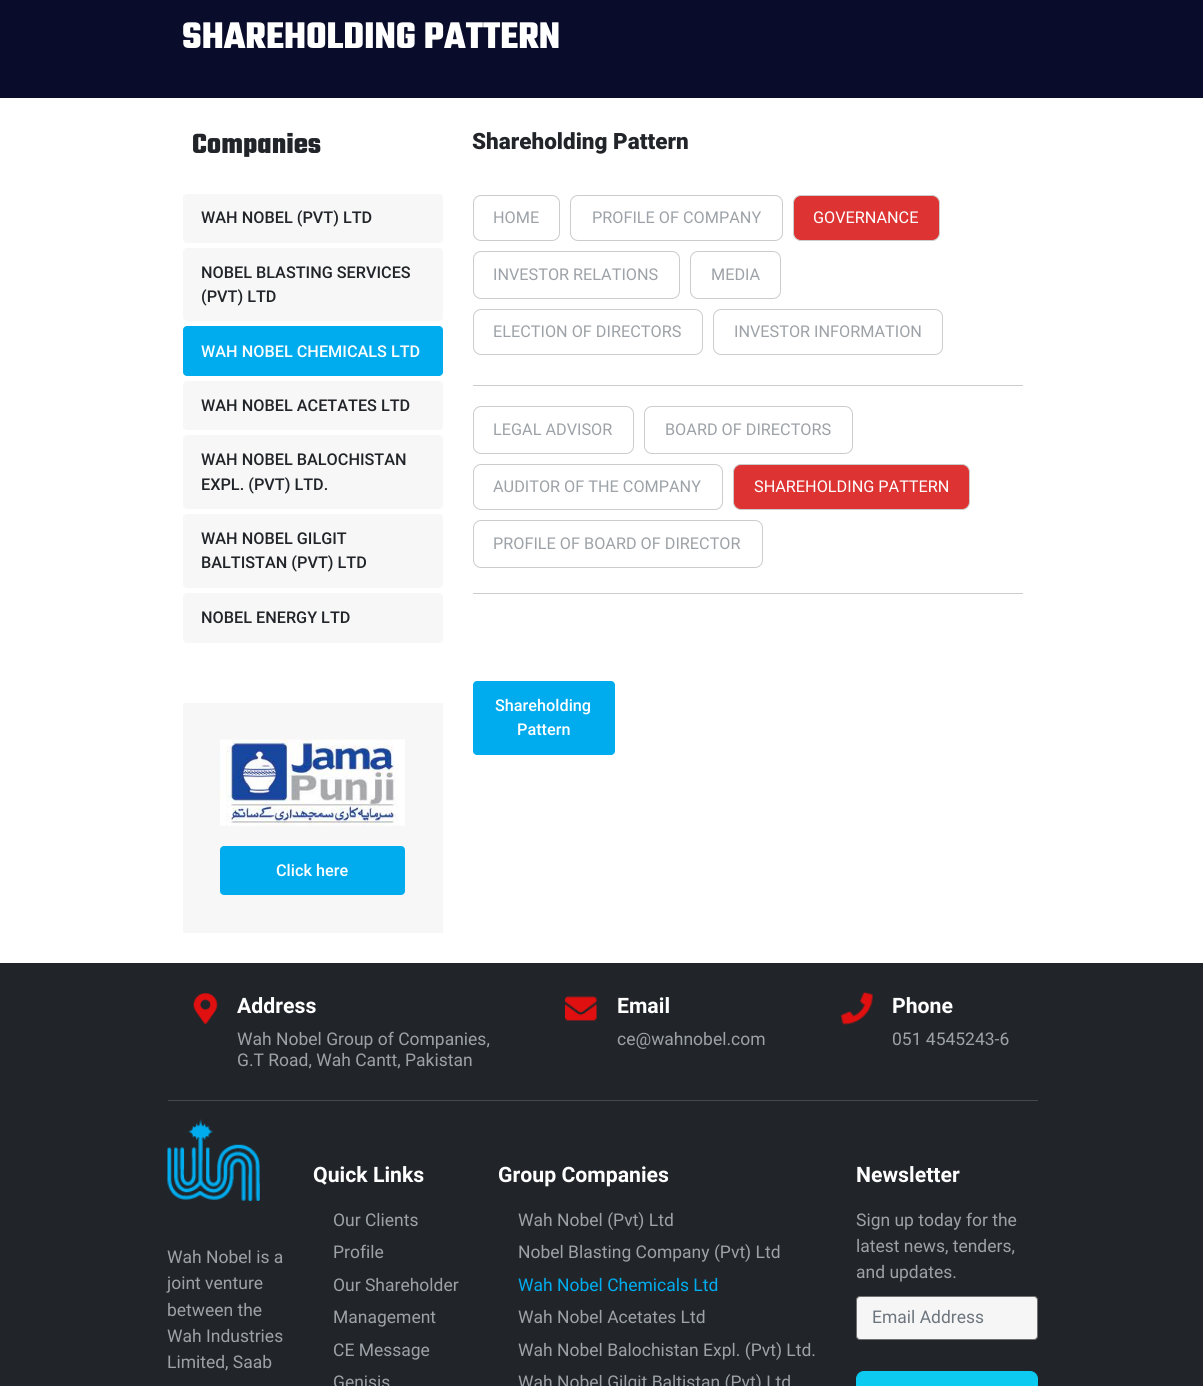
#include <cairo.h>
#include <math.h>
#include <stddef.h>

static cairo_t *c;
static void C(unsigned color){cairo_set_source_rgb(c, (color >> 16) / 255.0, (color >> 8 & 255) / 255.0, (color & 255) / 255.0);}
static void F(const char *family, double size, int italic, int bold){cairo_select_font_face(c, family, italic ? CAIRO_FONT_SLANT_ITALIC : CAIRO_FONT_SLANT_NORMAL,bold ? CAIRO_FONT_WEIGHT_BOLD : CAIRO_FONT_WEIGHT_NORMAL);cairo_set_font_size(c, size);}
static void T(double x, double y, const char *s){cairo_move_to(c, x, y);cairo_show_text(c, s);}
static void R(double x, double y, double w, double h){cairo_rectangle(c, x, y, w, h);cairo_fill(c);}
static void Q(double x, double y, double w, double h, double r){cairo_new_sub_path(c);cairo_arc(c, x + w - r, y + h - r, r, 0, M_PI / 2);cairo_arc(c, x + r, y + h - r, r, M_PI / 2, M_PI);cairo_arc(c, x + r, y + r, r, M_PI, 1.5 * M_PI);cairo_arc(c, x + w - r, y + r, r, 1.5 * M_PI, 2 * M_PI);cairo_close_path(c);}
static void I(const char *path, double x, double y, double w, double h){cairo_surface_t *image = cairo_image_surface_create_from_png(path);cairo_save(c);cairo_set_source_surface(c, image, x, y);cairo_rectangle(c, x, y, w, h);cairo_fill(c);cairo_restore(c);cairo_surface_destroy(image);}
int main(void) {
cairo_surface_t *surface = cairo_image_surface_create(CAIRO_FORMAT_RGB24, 1203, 1386);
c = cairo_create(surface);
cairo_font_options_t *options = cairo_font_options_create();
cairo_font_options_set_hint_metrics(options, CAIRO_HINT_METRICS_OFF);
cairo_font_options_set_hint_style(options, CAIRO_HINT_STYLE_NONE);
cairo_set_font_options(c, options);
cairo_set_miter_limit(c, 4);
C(0xffffff);
cairo_paint(c);
C(0x090c2b);
R(0,0,1203,98);
F("Teko",40,0,1);
C(0xffffff);
T(182,48,"SHAREHOLDING PATTERN");
F("Teko",30,0,1);
C(0x212529);
T(192,153,"Companies");
C(0xf7f7f7);
Q(183,194,260,49,4);
cairo_fill(c);
F("Roboto Medium",16.25,0,0);
C(0x212529);
T(201,223,"WAH NOBEL (PVT) LTD");
C(0xf7f7f7);
Q(183,248,260,73,4);
cairo_fill(c);
C(0x212529);
T(201,278,"NOBEL BLASTING SERVICES");
T(201,302,"(PVT) LTD");
C(0x00acee);
Q(183,326,260,50,4);
cairo_fill(c);
C(0xffffff);
T(201,357,"WAH NOBEL CHEMICALS LTD");
C(0xf7f7f7);
Q(183,381,260,49,4);
cairo_fill(c);
C(0x212529);
T(201,411,"WAH NOBEL ACETATES LTD");
C(0xf7f7f7);
Q(183,435,260,74,4);
cairo_fill(c);
C(0x212529);
T(201,465,"WAH NOBEL BALOCHISTAN");
T(201,490,"EXPL. (PVT) LTD.");
C(0xf7f7f7);
Q(183,514,260,74,4);
cairo_fill(c);
C(0x212529);
T(201,544,"WAH NOBEL GILGIT");
T(201,568,"BALTISTAN (PVT) LTD");
C(0xf7f7f7);
Q(183,593,260,50,4);
cairo_fill(c);
C(0x212529);
T(201,623,"NOBEL ENERGY LTD");
C(0xf7f7f7);
R(183,703,260,230);
I("1.png",220,739,185,87);
C(0x00acee);
Q(220,846,185,49,4);
cairo_fill(c);
C(0xffffff);
T(276,876,"Click here");
F("Roboto Black",22.5,0,0);
C(0x212529);
T(472,149,"Shareholding Pattern");
C(0xcccccc);
R(473,385,550,1);
Q(473.5,195.5,86,45,7.5);
cairo_set_line_width(c,1);
cairo_stroke(c);
F("Roboto",16.25,0,0);
C(0x9ca2a7);
T(493,223,"HOME");
Q(570.5,195.5,212,45,7.5);
C(0xcccccc);
cairo_stroke(c);
C(0x9ca2a7);
T(592,223,"PROFILE OF COMPANY");
C(0xdd3333);
Q(793.5,195.5,146,45,7.5);
cairo_fill_preserve(c);
C(0xcccccc);
cairo_stroke(c);
C(0xffffff);
T(813,223,"GOVERNANCE");
Q(473.5,251.5,206,47,7.5);
C(0xcccccc);
cairo_stroke(c);
C(0x9ca2a7);
T(493,280,"INVESTOR RELATIONS");
Q(690.5,251.5,90,47,7.5);
C(0xcccccc);
cairo_stroke(c);
C(0x9ca2a7);
T(711,280,"MEDIA");
Q(473.5,309.5,229,45,7.5);
C(0xcccccc);
cairo_stroke(c);
C(0x9ca2a7);
T(493,337,"ELECTION OF DIRECTORS");
Q(713.5,309.5,229,45,7.5);
C(0xcccccc);
cairo_stroke(c);
C(0x9ca2a7);
T(734,337,"INVESTOR INFORMATION");
C(0xcccccc);
R(473,593,550,1);
Q(473.5,406.5,160,47,7.5);
cairo_stroke(c);
C(0x9ca2a7);
T(493,435,"LEGAL ADVISOR");
Q(644.5,406.5,208,47,7.5);
C(0xcccccc);
cairo_stroke(c);
C(0x9ca2a7);
T(665,435,"BOARD OF DIRECTORS");
Q(473.5,464.5,249,45,7.5);
C(0xcccccc);
cairo_stroke(c);
C(0x9ca2a7);
T(493,492,"AUDITOR OF THE COMPANY");
C(0xdd3333);
Q(733.5,464.5,236,45,7.5);
cairo_fill_preserve(c);
C(0xcccccc);
cairo_stroke(c);
C(0xffffff);
T(754,492,"SHAREHOLDING PATTERN");
Q(473.5,520.5,289,47,7.5);
C(0xcccccc);
cairo_stroke(c);
C(0x9ca2a7);
T(493,549,"PROFILE OF BOARD OF DIRECTOR");
C(0x00acee);
Q(473,681,142,74,4);
cairo_fill(c);
F("Roboto Medium",16.25,0,0);
C(0xffffff);
T(495,711,"Shareholding");
T(517,735,"Pattern");
C(0x212529);
R(0,963,1203,423);
I("2.png",193,993,25,32);
F("Roboto",21.25,0,1);
C(0xffffff);
T(237,1013,"Address");
F("Roboto",17.5,0,0);
C(0x9ca2a7);
T(237,1045,"Wah Nobel Group of Companies,");
T(237,1066,"G.T Road, Wah Cantt, Pakistan");
I("3.png",565,996,32,25);
F("Roboto",21.25,0,1);
C(0xffffff);
T(617,1013,"Email");
F("Roboto",17.5,0,0);
C(0x9ca2a7);
T(617,1045,"ce@wahnobel.com");
I("4.png",841,992,32,33);
F("Roboto",21.25,0,1);
C(0xffffff);
T(892,1013,"Phone");
F("Roboto",17.5,0,0);
C(0x9ca2a7);
T(892,1045,"051 4545243-6");
C(0x46494c);
R(168,1100,870,1);
I("5.png",167,1119,93,83);
C(0x9ca2a7);
T(167,1263,"Wah Nobel is a");
T(167,1289,"joint venture");
T(167,1316,"between the");
T(167,1342,"Wah Industries");
T(167,1368,"Limited, Saab");
F("Roboto",21.25,0,1);
C(0xffffff);
T(313,1182,"Quick Links");
F("Roboto",17.5,0,0);
C(0x9ca2a7);
T(333,1226,"Our Clients");
T(333,1258,"Profile");
T(333,1291,"Our Shareholder");
T(333,1323,"Management");
T(333,1356,"CE Message");
T(333,1388,"Genisis");
F("Roboto",21.25,0,1);
C(0xffffff);
T(498,1182,"Group Companies");
F("Roboto",17.5,0,0);
C(0x9ca2a7);
T(518,1226,"Wah Nobel (Pvt) Ltd");
T(518,1258,"Nobel Blasting Company (Pvt) Ltd");
C(0x00acee);
T(518,1291,"Wah Nobel Chemicals Ltd");
C(0x9ca2a7);
T(518,1323,"Wah Nobel Acetates Ltd");
T(518,1356,"Wah Nobel Balochistan Expl. (Pvt) Ltd.");
T(518,1388,"Wah Nobel Gilgit Baltistan (Pvt) Ltd");
F("Roboto",21.25,0,1);
C(0xffffff);
T(856,1182,"Newsletter");
F("Roboto",17.5,0,0);
C(0x9ca2a7);
T(856,1226,"Sign up today for the");
T(856,1252,"latest news, tenders,");
T(856,1278,"and updates.");
C(0xf6f6f6);
Q(856.5,1296.5,181,43,3.5);
cairo_fill_preserve(c);
C(0x707070);
cairo_stroke(c);
C(0x6c757d);
T(872,1323,"Email Address");
C(0x0dcaf0);
Q(856.5,1371.5,181,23,7.5);
cairo_fill_preserve(c);
cairo_stroke(c);
cairo_surface_write_to_png(surface, "o.png");
cairo_font_options_destroy(options);
cairo_destroy(c);
cairo_surface_destroy(surface);
return 0;
}
